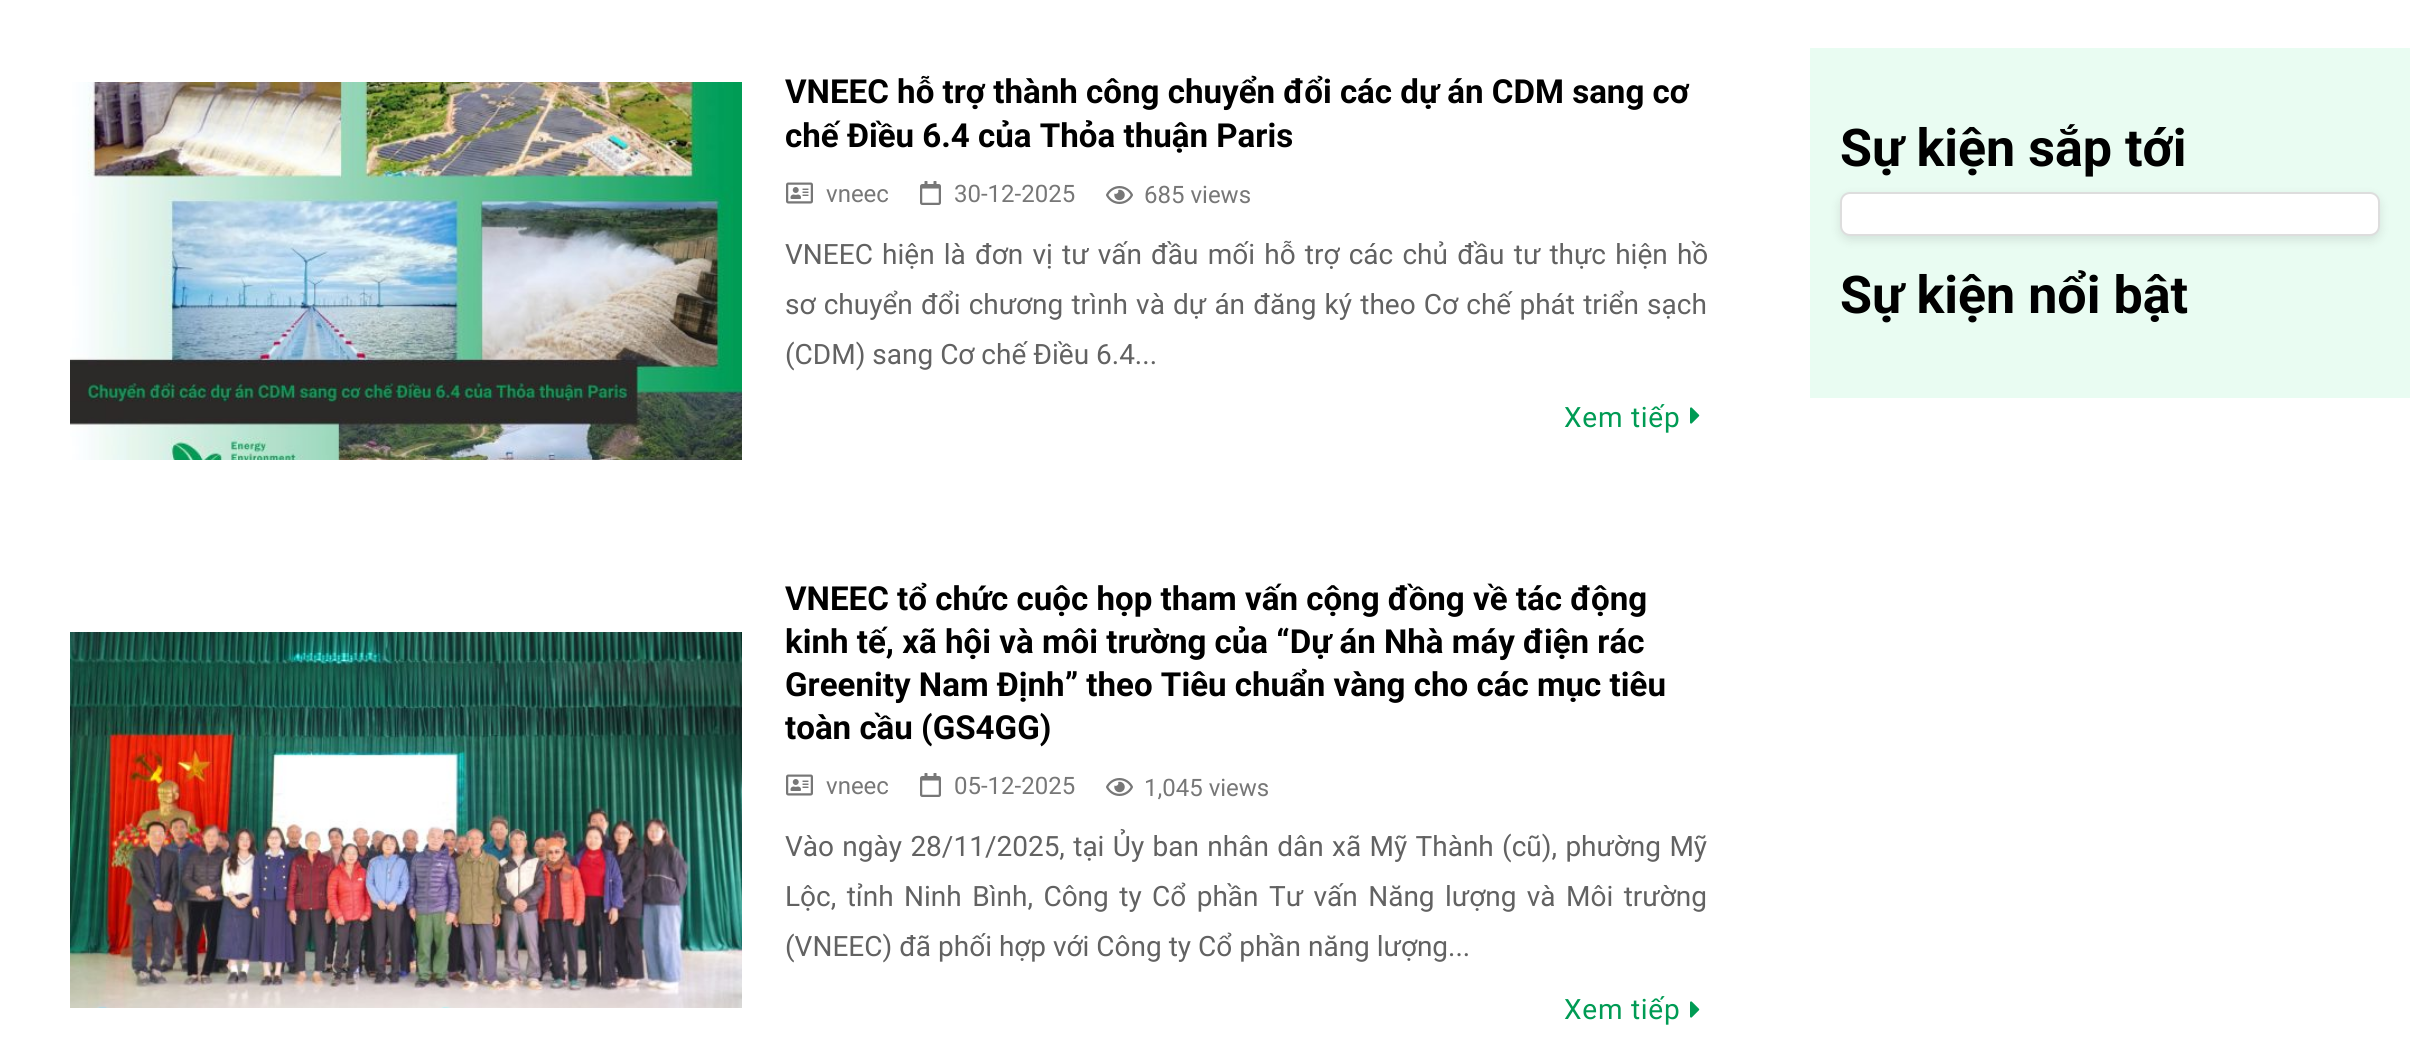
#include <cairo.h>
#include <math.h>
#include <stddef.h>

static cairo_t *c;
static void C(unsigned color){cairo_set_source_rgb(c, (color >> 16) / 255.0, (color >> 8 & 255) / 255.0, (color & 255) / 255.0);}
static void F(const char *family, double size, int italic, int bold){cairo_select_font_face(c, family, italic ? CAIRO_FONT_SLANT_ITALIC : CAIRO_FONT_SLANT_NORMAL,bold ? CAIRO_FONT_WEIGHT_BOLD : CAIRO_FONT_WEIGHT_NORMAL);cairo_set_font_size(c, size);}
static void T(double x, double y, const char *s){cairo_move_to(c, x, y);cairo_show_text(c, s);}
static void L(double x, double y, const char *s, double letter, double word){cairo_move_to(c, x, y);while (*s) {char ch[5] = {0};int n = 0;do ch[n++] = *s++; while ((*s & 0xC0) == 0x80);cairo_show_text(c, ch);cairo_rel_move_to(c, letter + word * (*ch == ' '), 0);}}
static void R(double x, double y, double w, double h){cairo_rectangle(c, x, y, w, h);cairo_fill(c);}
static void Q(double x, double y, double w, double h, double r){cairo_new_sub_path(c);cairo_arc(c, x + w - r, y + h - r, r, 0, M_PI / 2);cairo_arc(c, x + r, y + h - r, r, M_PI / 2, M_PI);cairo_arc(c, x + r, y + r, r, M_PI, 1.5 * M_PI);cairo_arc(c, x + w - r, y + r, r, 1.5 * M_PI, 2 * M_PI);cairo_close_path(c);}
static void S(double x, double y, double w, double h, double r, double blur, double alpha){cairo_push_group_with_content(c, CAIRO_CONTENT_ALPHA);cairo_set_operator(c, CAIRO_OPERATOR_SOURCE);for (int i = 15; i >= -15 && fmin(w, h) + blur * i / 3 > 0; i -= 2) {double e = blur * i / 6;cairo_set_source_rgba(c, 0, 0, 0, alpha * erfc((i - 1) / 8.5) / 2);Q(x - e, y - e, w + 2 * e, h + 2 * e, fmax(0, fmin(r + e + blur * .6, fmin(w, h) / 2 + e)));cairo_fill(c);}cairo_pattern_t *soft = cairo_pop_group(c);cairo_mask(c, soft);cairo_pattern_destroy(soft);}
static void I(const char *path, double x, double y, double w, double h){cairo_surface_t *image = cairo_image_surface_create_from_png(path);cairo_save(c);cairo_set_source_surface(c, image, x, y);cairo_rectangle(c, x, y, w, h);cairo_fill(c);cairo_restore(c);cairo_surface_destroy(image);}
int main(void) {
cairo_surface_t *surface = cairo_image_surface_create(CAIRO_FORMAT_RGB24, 2419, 1054);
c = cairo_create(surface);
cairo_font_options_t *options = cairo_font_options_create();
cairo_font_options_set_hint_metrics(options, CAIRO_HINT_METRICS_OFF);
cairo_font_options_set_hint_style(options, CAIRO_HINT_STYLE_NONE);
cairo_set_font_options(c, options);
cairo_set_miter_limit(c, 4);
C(0xffffff);
cairo_paint(c);
I("1.png",70,82,672,378);
F("Roboto",33.1,0,1);
C(0x000000);
T(785,103,"VNEEC hỗ trợ thành công chuyển đổi các dự án CDM sang cơ");
T(785,147,"chế Điều 6.4 của Thỏa thuận Paris");
I("2.png",786,182,27,22);
F("Roboto",24,0,0);
C(0x777777);
T(826,202,"vneec");
I("3.png",920,181,21,24);
T(954,202,"30-12-2025");
I("4.png",1106,186,27,18);
T(1144,203,"685 views");
F("Roboto",28,0,0);
C(0x626262);
L(785,264,"VNEEC hiện là đơn vị tư vấn đầu mối hỗ trợ các chủ đầu tư thực hiện hồ",0,2.25);
L(785,314,"sơ chuyển đổi chương trình và dự án đăng ký theo Cơ chế phát triển sạch",0,1.25);
T(785,364,"(CDM) sang Cơ chế Điều 6.4...");
C(0x009b54);
L(1564,427,"Xem tiếp",.75,0);
I("5.png",1690,407,10,17);
I("6.png",70,632,672,376);
F("Roboto",33.1,0,1);
C(0x000000);
T(785,610,"VNEEC tổ chức cuộc họp tham vấn cộng đồng về tác động");
T(785,653,"kinh tế, xã hội và môi trường của “Dự án Nhà máy điện rác");
T(785,696,"Greenity Nam Định” theo Tiêu chuẩn vàng cho các mục tiêu");
T(785,739,"toàn cầu (GS4GG)");
I("2.png",786,774,27,22);
F("Roboto",24,0,0);
C(0x777777);
T(826,794,"vneec");
I("3.png",920,773,21,24);
T(954,794,"05-12-2025");
I("4.png",1106,778,27,18);
T(1144,796,"1,045 views");
F("Roboto",28,0,0);
C(0x626262);
L(785,856,"Vào ngày 28/11/2025, tại Ủy ban nhân dân xã Mỹ Thành (cũ), phường Mỹ",0,1.4);
L(785,906,"Lộc, tỉnh Ninh Bình, Công ty Cổ phần Tư vấn Năng lượng và Môi trường",0,3.5);
T(785,956,"(VNEEC) đã phối hợp với Công ty Cổ phần năng lượng...");
C(0x009b54);
L(1564,1019,"Xem tiếp",.75,0);
I("5.png",1690,1001,10,17);
C(0xe9fcf2);
R(1810,48,600,350);
F("Roboto",52,0,1);
C(0x000000);
T(1840,166,"Sự kiện sắp tới");
C(0x000000);
S(1840,196,540,44,10,5,.1);
C(0xffffff);
Q(1841,193,538,42,9);
cairo_fill_preserve(c);
C(0xdddddd);
cairo_stroke(c);
C(0x000000);
T(1840,313,"Sự kiện nổi bật");
cairo_surface_write_to_png(surface, "o.png");
cairo_font_options_destroy(options);
cairo_destroy(c);
cairo_surface_destroy(surface);
return 0;
}
